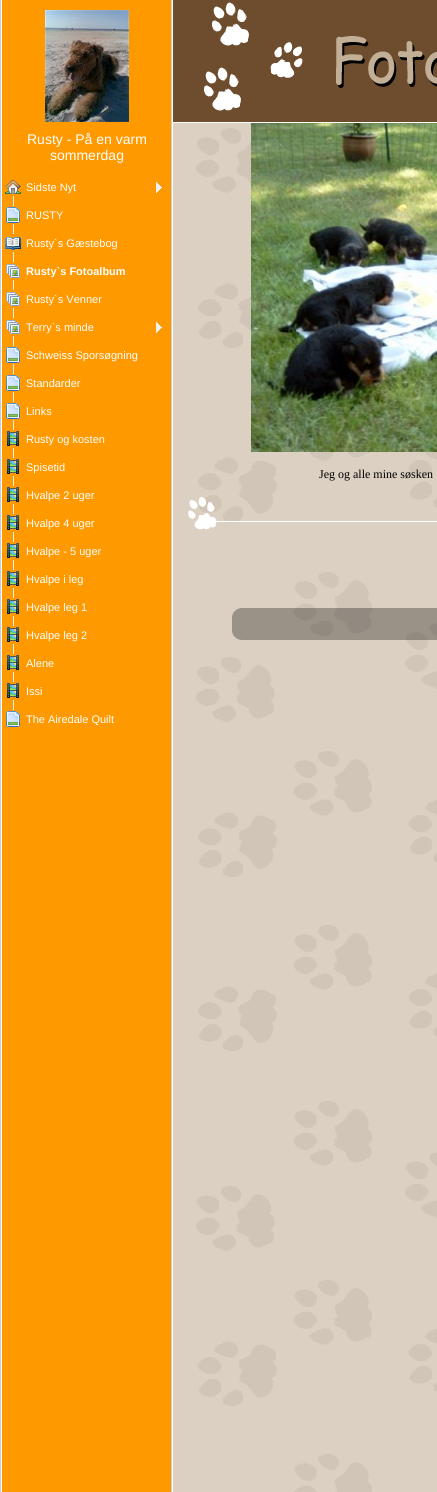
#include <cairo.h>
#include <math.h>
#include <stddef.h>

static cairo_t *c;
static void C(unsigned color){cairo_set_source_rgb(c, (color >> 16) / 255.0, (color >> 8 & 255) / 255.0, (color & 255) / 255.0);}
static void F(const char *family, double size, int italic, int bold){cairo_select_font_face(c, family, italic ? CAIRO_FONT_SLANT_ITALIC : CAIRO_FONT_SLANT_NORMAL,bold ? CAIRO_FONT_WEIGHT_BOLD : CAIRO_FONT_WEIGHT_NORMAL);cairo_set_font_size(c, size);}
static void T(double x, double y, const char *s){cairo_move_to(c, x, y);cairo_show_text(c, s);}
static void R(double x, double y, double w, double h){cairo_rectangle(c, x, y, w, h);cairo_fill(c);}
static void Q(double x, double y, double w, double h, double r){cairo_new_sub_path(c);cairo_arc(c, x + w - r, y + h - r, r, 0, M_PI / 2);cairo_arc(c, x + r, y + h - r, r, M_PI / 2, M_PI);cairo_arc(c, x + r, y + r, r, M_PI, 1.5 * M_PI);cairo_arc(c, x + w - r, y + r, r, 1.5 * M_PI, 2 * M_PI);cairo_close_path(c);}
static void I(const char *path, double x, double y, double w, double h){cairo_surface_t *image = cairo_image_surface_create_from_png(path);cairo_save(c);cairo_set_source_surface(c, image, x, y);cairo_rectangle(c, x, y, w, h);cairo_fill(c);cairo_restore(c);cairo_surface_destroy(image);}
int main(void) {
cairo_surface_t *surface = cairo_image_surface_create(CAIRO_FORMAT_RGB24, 437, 1492);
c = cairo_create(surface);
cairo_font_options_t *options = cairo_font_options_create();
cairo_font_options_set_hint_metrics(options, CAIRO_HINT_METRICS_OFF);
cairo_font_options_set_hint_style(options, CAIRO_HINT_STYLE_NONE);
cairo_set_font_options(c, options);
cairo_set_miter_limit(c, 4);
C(0xffffff);
cairo_paint(c);
C(0xcccccc);
R(0,0,1,1492);
C(0xff9900);
R(2,0,169,1492);
I("1.png",45,10,84,112);
F("Liberation Sans",14,0,0);
C(0xffffff);
T(27,144,"Rusty - På en varm");
T(50,160,"sommerdag");
C(0xefefef);
R(13,196,1,5);
I("2.png",5,180,16,14);
I("3.png",156,182,6,11);
F("Liberation Sans",11,0,0);
C(0xffffff);
T(26,191,"Sidste Nyt");
I("4.png",13,201,1,28);
I("5.png",6,207,14,16);
T(26,219,"RUSTY");
I("4.png",13,229,1,28);
I("6.png",5,237,16,13);
T(26,247,"Rusty`s Gæstebog");
I("4.png",13,257,1,28);
I("7.png",6,264,14,14);
F("Liberation Sans",11,0,1);
T(26,275,"Rusty`s Fotoalbum");
I("4.png",13,285,1,28);
I("7.png",6,292,14,14);
F("Liberation Sans",11,0,0);
T(26,303,"Rusty`s Venner");
I("4.png",13,313,1,28);
I("7.png",6,320,14,14);
I("3.png",156,322,6,11);
T(26,331,"Terry`s minde");
I("4.png",13,341,1,28);
I("5.png",6,347,14,16);
T(26,359,"Schweiss Sporsøgning");
I("4.png",13,369,1,28);
I("5.png",6,375,14,16);
T(26,387,"Standarder");
I("4.png",13,397,1,28);
I("5.png",6,403,14,16);
T(26,415,"Links");
I("4.png",13,425,1,28);
I("8.png",7,431,12,15);
T(26,443,"Rusty og kosten");
I("4.png",13,453,1,28);
I("8.png",7,459,12,15);
T(26,471,"Spisetid");
I("4.png",13,481,1,28);
I("8.png",7,487,12,15);
T(26,499,"Hvalpe 2 uger");
I("4.png",13,509,1,28);
I("8.png",7,515,12,15);
T(26,527,"Hvalpe 4 uger");
I("4.png",13,537,1,28);
I("8.png",7,543,12,15);
T(26,555,"Hvalpe - 5 uger");
I("4.png",13,565,1,28);
I("8.png",7,571,12,15);
T(26,583,"Hvalpe i leg");
I("4.png",13,593,1,28);
I("8.png",7,599,12,15);
T(26,611,"Hvalpe leg 1");
I("4.png",13,621,1,28);
I("8.png",7,627,12,15);
T(26,639,"Hvalpe leg 2");
I("4.png",13,649,1,28);
I("8.png",7,655,12,15);
T(26,667,"Alene");
I("4.png",13,677,1,28);
I("8.png",7,683,12,15);
T(26,695,"Issi");
C(0xefefef);
R(13,705,1,5);
I("5.png",6,711,14,16);
C(0xffffff);
T(26,723,"The Airedale Quilt");
C(0xcccccc);
R(171,0,1,1492);
C(0xdbd0c1);
R(173,123,264,1369);
I("9.png",196,128,241,1364);
I("10.png",173,0,264,122);
I("11.png",251,123,186,329);
F("Liberation Serif",12,0,0);
C(0x000000);
T(319,478,"Jeg og alle mine søsken");
I("12.png",188,497,29,33);
C(0xffffff);
R(217,521,220,1);
cairo_set_source_rgba(c,0,0,0,0.3);
Q(232,608,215,32,10);
cairo_fill(c);
cairo_surface_write_to_png(surface, "o.png");
cairo_font_options_destroy(options);
cairo_destroy(c);
cairo_surface_destroy(surface);
return 0;
}
